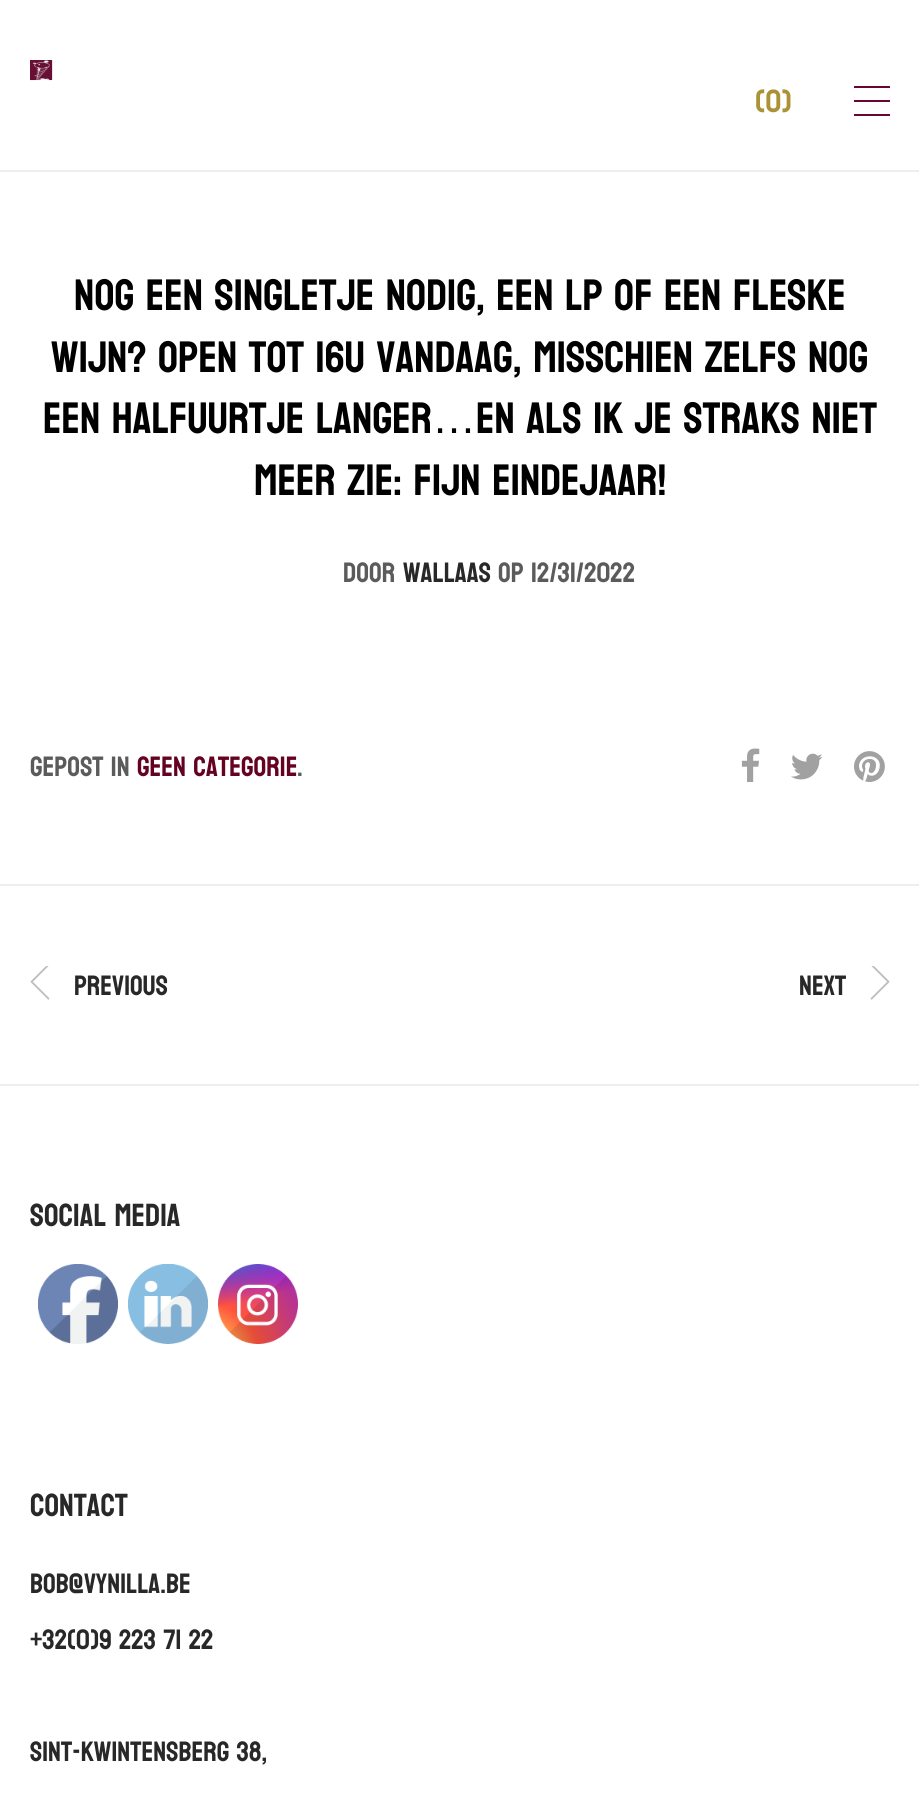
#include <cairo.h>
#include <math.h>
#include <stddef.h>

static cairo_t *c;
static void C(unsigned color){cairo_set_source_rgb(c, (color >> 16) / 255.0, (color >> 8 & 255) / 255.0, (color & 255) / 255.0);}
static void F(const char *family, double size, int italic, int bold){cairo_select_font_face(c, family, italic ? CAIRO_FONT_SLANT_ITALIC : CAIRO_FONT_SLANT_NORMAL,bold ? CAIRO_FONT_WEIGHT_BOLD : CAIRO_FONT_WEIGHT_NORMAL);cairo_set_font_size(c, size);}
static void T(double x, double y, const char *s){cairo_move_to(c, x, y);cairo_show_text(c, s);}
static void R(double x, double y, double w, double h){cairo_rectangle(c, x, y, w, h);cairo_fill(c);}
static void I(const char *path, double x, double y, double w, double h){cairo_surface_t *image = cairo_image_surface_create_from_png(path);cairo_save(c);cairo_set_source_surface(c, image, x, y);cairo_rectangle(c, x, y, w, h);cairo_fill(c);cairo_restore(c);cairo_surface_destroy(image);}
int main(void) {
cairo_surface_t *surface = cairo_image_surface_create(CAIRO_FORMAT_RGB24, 919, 1795);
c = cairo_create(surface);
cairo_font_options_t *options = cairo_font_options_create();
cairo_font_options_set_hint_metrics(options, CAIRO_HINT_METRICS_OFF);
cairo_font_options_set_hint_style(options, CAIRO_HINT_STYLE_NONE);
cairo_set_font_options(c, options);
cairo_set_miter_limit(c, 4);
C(0xffffff);
cairo_paint(c);
C(0xeeeeee);
R(0,170,919,2);
I("1.png",30,60,23,21);
F("Koulen",32,0,0);
C(0xab9236);
T(755,112,"(0)");
C(0x680532);
R(854,86,36,2);
R(854,100,36,2);
R(854,114,36,2);
F("Koulen",44,0,0);
C(0x000000);
T(74,310,"Nog een singletje nodig, een LP of een fleske");
T(51,372,"wijn? Open tot 16u vandaag, misschien zelfs nog");
T(43,433,"een halfuurtje langer");
F("Liberation Sans",44,0,0);
T(432,433,"…");
F("Koulen",44,0,0);
T(476,433,"En als ik je straks niet");
T(254,495,"meer zie: fijn eindejaar!");
F("Koulen",28,0,0);
C(0x5b5b5b);
T(343,582,"door");
C(0x282828);
T(403,582,"wallaas");
C(0x5b5b5b);
T(498,582,"op 12/31/2022");
T(30,776,"Gepost in");
C(0x660221);
T(137,776,"Geen categorie");
C(0x5b5b5b);
T(297,776,".");
I("2.png",741,748,19,34);
I("3.png",791,753,32,27);
I("4.png",854,751,31,31);
C(0xeeeeee);
R(0,884,919,2);
I("5.png",30,966,20,34);
C(0x282828);
T(74,995,"Previous");
T(799,995,"Next");
I("6.png",870,966,20,34);
C(0xeeeeee);
R(0,1084,919,2);
F("Koulen",32,0,0);
C(0x282828);
T(30,1226,"Social Media");
I("7.png",38,1264,80,80);
I("8.png",128,1264,80,80);
I("9.png",218,1264,80,80);
T(30,1516,"Contact");
F("Koulen",28,0,0);
T(30,1593,"bob@vynilla.be");
T(30,1649,"+32(0)9 223 71 22");
T(30,1761,"Sint-Kwintensberg 38,");
cairo_surface_write_to_png(surface, "o.png");
cairo_font_options_destroy(options);
cairo_destroy(c);
cairo_surface_destroy(surface);
return 0;
}
